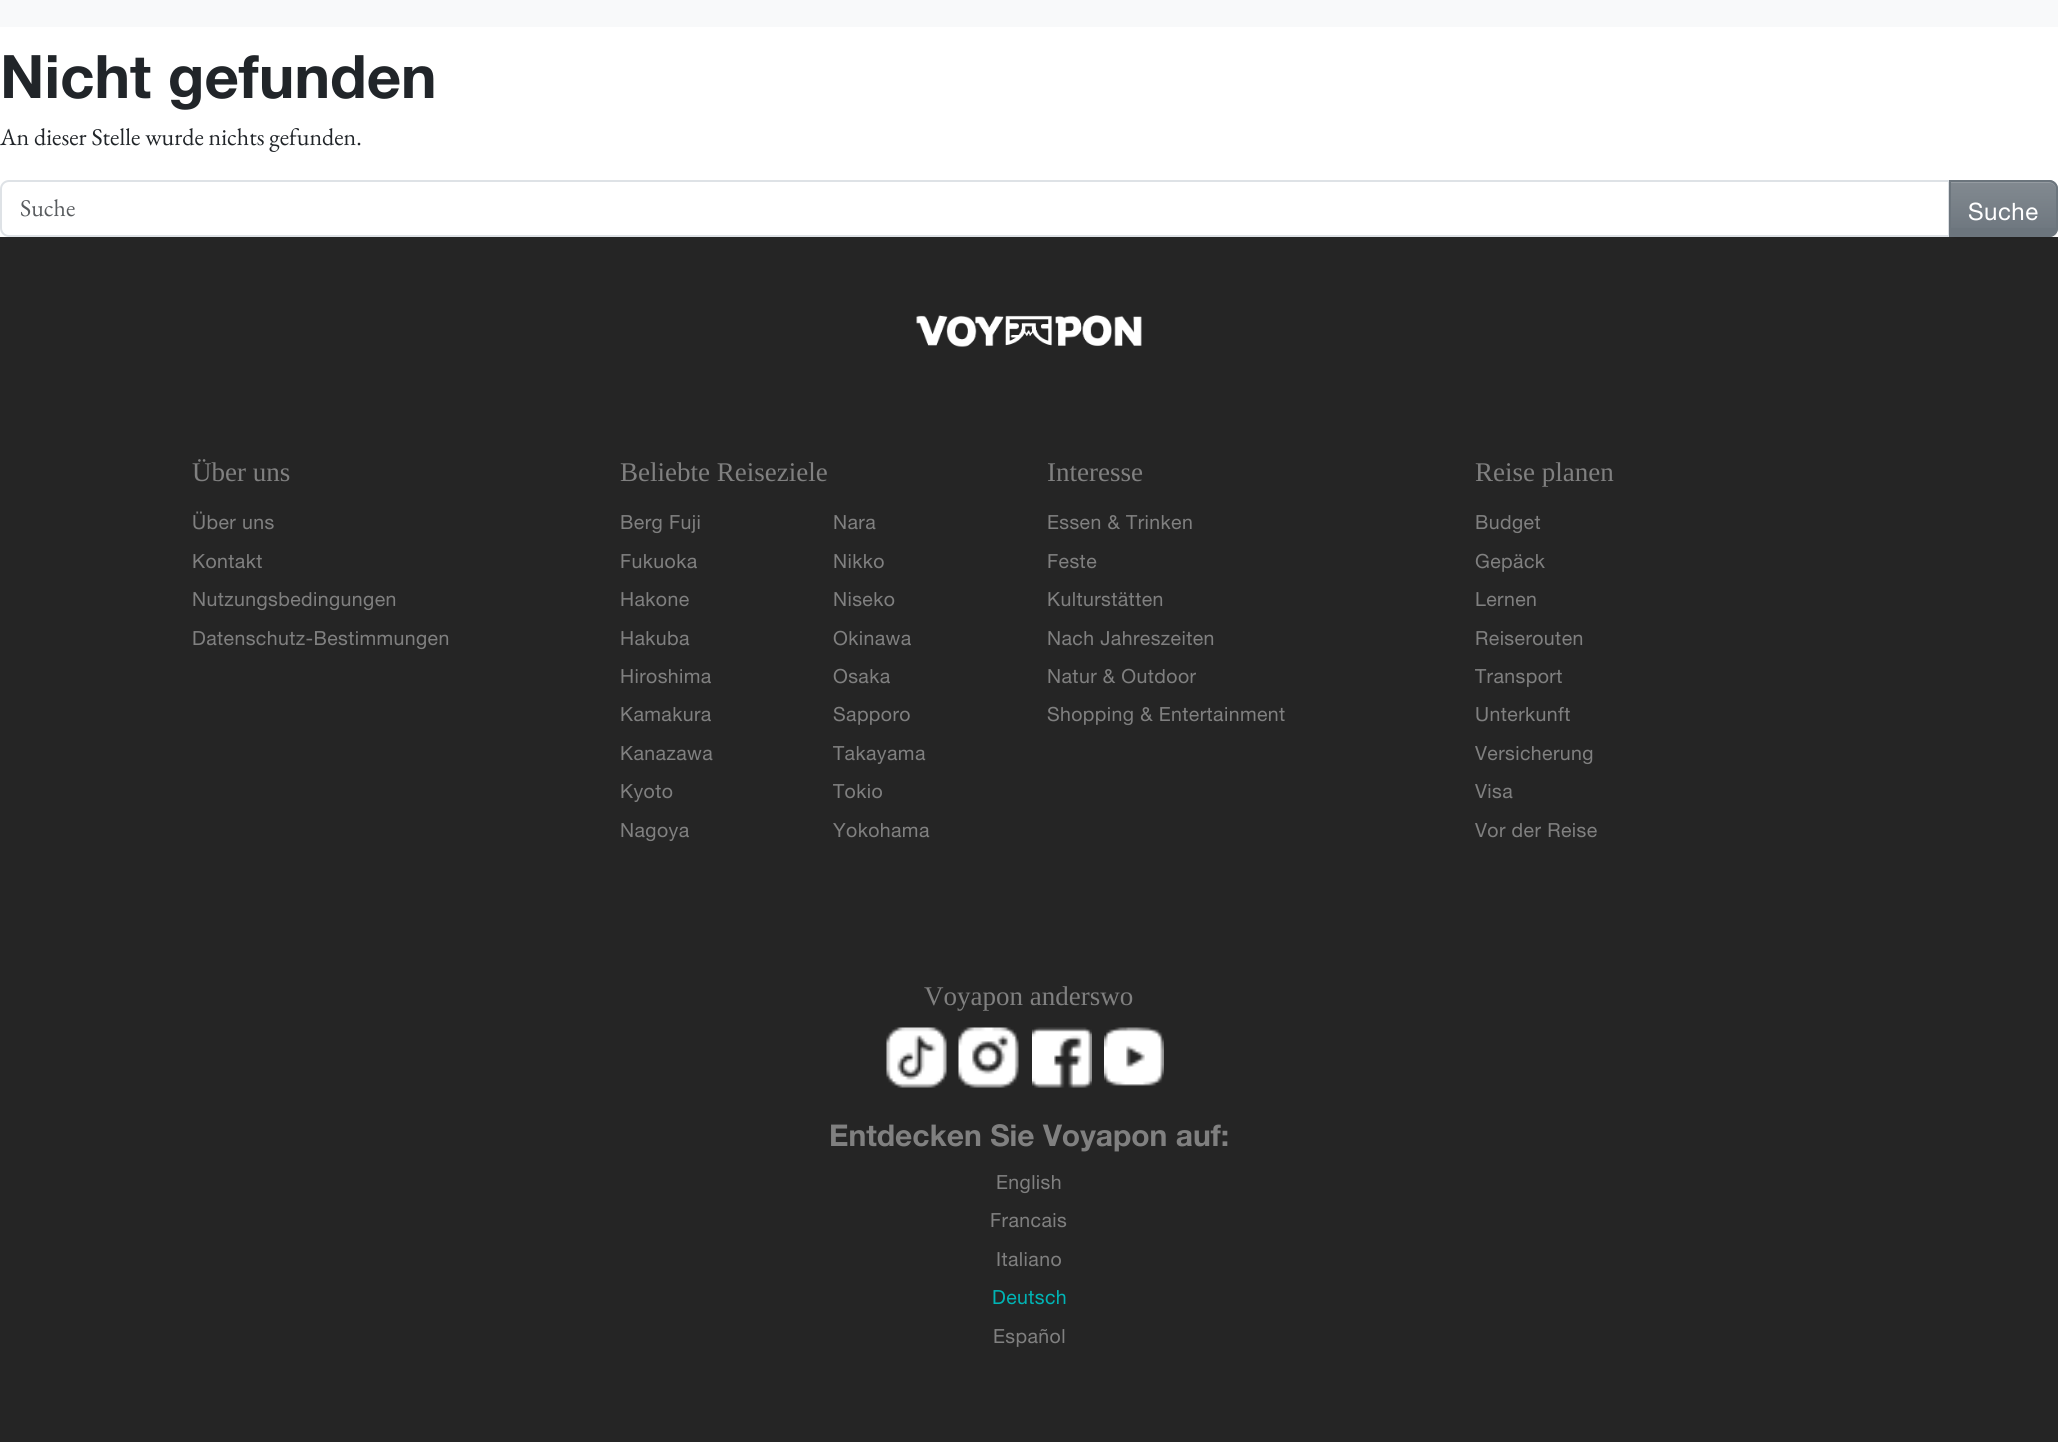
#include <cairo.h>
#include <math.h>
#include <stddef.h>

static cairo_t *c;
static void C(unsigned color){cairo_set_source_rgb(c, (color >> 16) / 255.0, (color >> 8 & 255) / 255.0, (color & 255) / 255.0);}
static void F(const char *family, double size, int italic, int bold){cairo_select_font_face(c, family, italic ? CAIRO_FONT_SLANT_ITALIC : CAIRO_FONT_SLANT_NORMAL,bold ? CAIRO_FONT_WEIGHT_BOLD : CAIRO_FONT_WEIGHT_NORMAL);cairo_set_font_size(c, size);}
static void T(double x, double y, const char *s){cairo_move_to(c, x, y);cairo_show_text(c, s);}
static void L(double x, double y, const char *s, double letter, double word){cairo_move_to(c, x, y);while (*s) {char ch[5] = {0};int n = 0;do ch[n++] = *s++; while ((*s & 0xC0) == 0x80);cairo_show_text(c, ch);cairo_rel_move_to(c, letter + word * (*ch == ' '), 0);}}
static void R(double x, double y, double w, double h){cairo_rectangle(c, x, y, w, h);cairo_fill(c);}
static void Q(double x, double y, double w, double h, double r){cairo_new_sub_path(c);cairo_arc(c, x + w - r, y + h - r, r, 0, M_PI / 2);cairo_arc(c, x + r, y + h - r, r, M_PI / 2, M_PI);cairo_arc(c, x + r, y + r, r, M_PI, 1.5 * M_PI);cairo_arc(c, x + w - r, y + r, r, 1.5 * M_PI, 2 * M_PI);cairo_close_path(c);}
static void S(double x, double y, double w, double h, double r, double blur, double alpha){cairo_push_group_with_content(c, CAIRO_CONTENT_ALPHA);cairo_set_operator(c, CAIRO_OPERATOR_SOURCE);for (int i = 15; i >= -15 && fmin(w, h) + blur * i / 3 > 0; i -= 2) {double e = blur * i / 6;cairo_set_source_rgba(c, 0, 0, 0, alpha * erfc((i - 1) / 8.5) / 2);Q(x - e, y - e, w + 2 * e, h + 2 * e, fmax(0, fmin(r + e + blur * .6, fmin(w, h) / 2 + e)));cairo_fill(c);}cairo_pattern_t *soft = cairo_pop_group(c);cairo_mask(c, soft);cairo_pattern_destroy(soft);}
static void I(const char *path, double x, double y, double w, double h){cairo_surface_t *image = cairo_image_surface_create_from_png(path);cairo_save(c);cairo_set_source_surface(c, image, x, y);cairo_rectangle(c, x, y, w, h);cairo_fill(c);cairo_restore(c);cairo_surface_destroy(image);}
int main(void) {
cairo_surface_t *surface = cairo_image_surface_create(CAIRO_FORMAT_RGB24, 2058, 1442);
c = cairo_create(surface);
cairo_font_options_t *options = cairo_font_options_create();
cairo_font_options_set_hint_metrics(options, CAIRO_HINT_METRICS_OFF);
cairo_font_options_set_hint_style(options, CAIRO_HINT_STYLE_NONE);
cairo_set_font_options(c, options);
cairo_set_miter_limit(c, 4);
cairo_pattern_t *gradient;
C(0xffffff);
cairo_paint(c);
C(0xf8f9fa);
R(0,0,2058,27);
F("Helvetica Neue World",60,0,1);
C(0x212529);
T(0,98,"Nicht gefunden");
F("EB Garamond",24,0,0);
T(0,145,"An dieser Stelle wurde nichts gefunden.");
cairo_new_path(c);
cairo_move_to(c,9,181);
cairo_line_to(c,1949,181);
cairo_line_to(c,1949,236);
cairo_line_to(c,9,236);
cairo_curve_to(c,4.5,236,1,232.5,1,228);
cairo_line_to(c,1,189);
cairo_curve_to(c,1,184.5,4.5,181,9,181);
cairo_close_path(c);
C(0xdee2e6);
cairo_stroke(c);
C(0x595c5f);
T(20,216,"Suche");
C(0x252525);
R(0,237,2058,1205);
C(0x000000);
S(1949,182,109,57,9,1,.07);
C(0x6c757d);
cairo_new_path(c);
cairo_move_to(c,1949,180);
cairo_line_to(c,2049,180);
cairo_curve_to(c,2054,180,2058,184,2058,189);
cairo_line_to(c,2058,228);
cairo_curve_to(c,2058,233,2054,237,2049,237);
cairo_line_to(c,1949,237);
cairo_close_path(c);
cairo_fill(c);
cairo_save(c);
cairo_new_path(c);
cairo_move_to(c,1949,180);
cairo_line_to(c,2049,180);
cairo_curve_to(c,2054,180,2058,184,2058,189);
cairo_line_to(c,2058,228);
cairo_curve_to(c,2058,233,2054,237,2049,237);
cairo_line_to(c,1949,237);
cairo_close_path(c);
cairo_clip(c);
gradient = cairo_pattern_create_linear(2003,182,2003,236);
cairo_pattern_add_color_stop_rgba(gradient,0,1,1,1,.15);
cairo_pattern_add_color_stop_rgba(gradient,1,1,1,1,0);
cairo_set_source(c,gradient);
cairo_pattern_destroy(gradient);
R(1951,182,107,46);
cairo_restore(c);
cairo_set_source_rgba(c,1,1,1,0.15);
cairo_new_path(c);
cairo_move_to(c,1950,183);
cairo_line_to(c,2049,183);
cairo_curve_to(c,2053,183,2056,186,2056,190);
cairo_line_to(c,2056,230);
cairo_line_to(c,2056,233);
cairo_curve_to(c,2056,231,2057,230,2057,228);
cairo_line_to(c,2057,190);
cairo_curve_to(c,2057,186,2053,182,2049,182);
cairo_line_to(c,1950,182);
cairo_close_path(c);
cairo_fill(c);
cairo_new_path(c);
cairo_move_to(c,1950,181);
cairo_line_to(c,2049,181);
cairo_curve_to(c,2053.5,181,2057,184.5,2057,189);
cairo_line_to(c,2057,228);
cairo_curve_to(c,2057,232.5,2053.5,236,2049,236);
cairo_line_to(c,1950,236);
cairo_close_path(c);
C(0x6c757d);
cairo_stroke(c);
F("Helvetica Neue World",24,0,0);
C(0xffffff);
L(1968,220,"Suche",.5,0);
I("1.png",916,315,226,32);
F("Liberation Serif",27,0,0);
C(0x808080);
T(192,481,"Über uns");
F("Helvetica Neue World",19.5,0,0);
L(192,529,"Über uns",.4,0);
L(192,568,"Kontakt",.4,0);
L(192,606,"Nutzungsbedingungen",.4,0);
L(192,645,"Datenschutz-Bestimmungen",.4,0);
F("Liberation Serif",27,0,0);
T(620,481,"Beliebte Reiseziele");
F("Helvetica Neue World",19.5,0,0);
L(620,529,"Berg Fuji",.4,0);
L(620,568,"Fukuoka",.4,0);
L(620,606,"Hakone",.4,0);
L(620,645,"Hakuba",.4,0);
L(620,683,"Hiroshima",.4,0);
L(620,721,"Kamakura",.4,0);
L(620,760,"Kanazawa",.4,0);
L(620,798,"Kyoto",.4,0);
L(620,837,"Nagoya",.4,0);
L(833,529,"Nara",.4,0);
L(833,568,"Nikko",.4,0);
L(833,606,"Niseko",.4,0);
L(833,645,"Okinawa",.4,0);
L(833,683,"Osaka",.4,0);
L(833,721,"Sapporo",.4,0);
L(833,760,"Takayama",.4,0);
L(833,798,"Tokio",.4,0);
L(833,837,"Yokohama",.4,0);
F("Liberation Serif",27,0,0);
T(1047,481,"Interesse");
F("Helvetica Neue World",19.5,0,0);
L(1047,529,"Essen & Trinken",.4,0);
L(1047,568,"Feste",.4,0);
L(1047,606,"Kulturstätten",.4,0);
L(1047,645,"Nach Jahreszeiten",.4,0);
L(1047,683,"Natur & Outdoor",.4,0);
L(1047,721,"Shopping & Entertainment",.4,0);
F("Liberation Serif",27,0,0);
T(1475,481,"Reise planen");
F("Helvetica Neue World",19.5,0,0);
L(1475,529,"Budget",.4,0);
L(1475,568,"Gepäck",.4,0);
L(1475,606,"Lernen",.4,0);
L(1475,645,"Reiserouten",.4,0);
L(1475,683,"Transport",.4,0);
L(1475,721,"Unterkunft",.4,0);
L(1475,760,"Versicherung",.4,0);
L(1475,798,"Visa",.4,0);
L(1475,837,"Vor der Reise",.4,0);
F("Liberation Serif",27,0,0);
T(924,1005,"Voyapon anderswo");
I("2.png",886,1027,61,61);
I("3.png",958,1027,61,61);
I("4.png",1032,1027,60,61);
I("5.png",1104,1027,60,59);
F("Helvetica Neue World",30,0,1);
T(829,1146,"Entdecken Sie Voyapon auf:");
F("Helvetica Neue World",19.5,0,0);
L(996,1189,"English",.4,0);
L(990,1227,"Francais",.4,0);
L(996,1266,"Italiano",.4,0);
C(0x00b4b5);
L(992,1304,"Deutsch",.4,0);
C(0x808080);
L(993,1343,"Español",.4,0);
cairo_surface_write_to_png(surface, "o.png");
cairo_font_options_destroy(options);
cairo_destroy(c);
cairo_surface_destroy(surface);
return 0;
}
